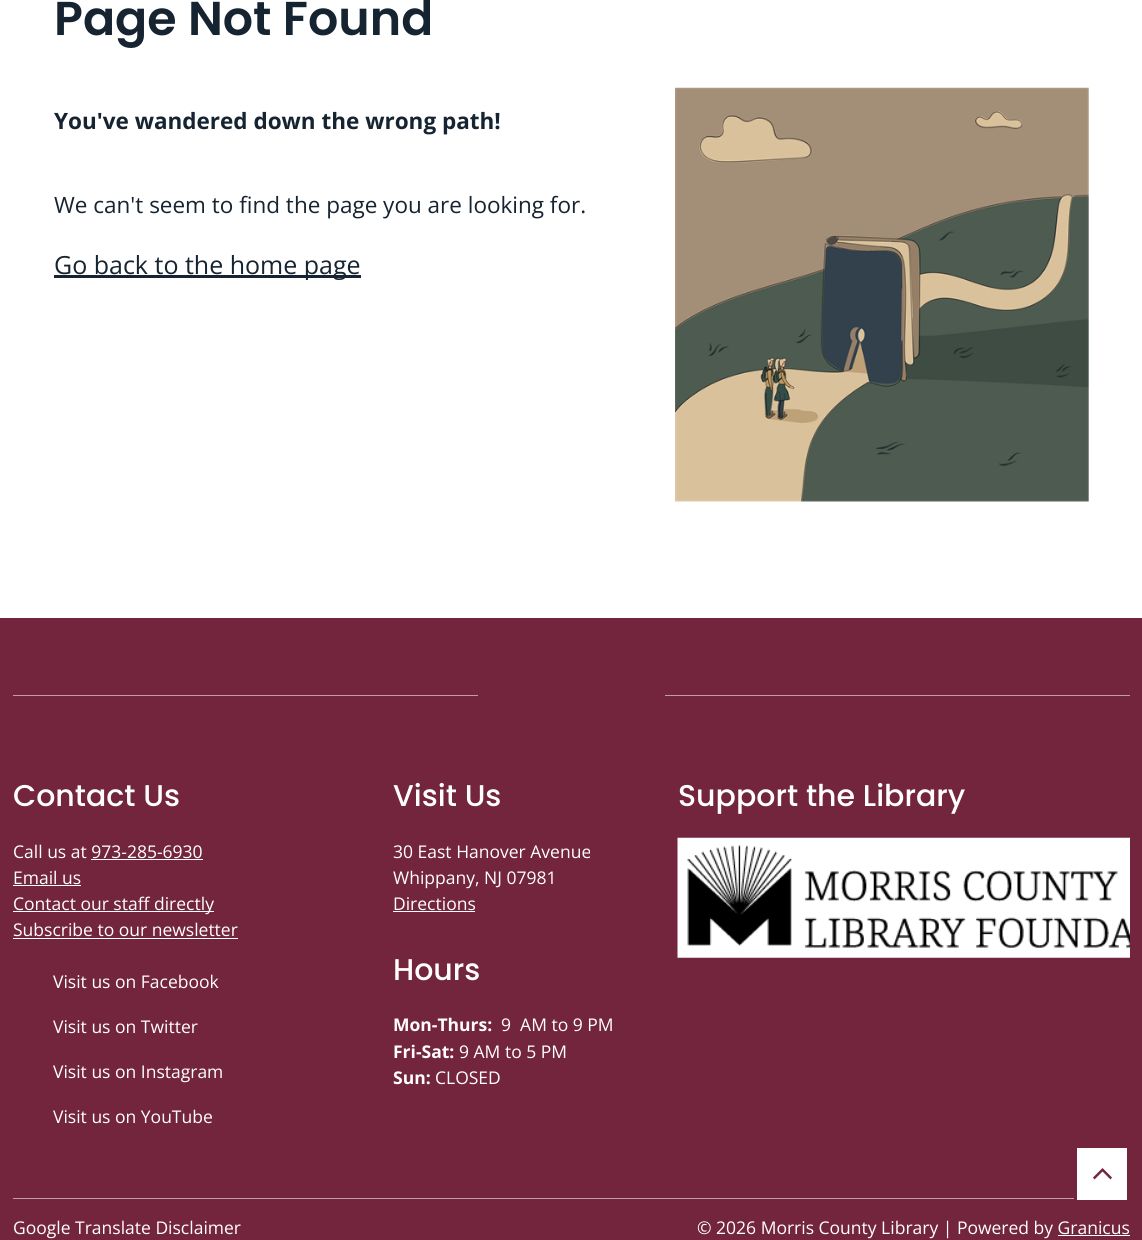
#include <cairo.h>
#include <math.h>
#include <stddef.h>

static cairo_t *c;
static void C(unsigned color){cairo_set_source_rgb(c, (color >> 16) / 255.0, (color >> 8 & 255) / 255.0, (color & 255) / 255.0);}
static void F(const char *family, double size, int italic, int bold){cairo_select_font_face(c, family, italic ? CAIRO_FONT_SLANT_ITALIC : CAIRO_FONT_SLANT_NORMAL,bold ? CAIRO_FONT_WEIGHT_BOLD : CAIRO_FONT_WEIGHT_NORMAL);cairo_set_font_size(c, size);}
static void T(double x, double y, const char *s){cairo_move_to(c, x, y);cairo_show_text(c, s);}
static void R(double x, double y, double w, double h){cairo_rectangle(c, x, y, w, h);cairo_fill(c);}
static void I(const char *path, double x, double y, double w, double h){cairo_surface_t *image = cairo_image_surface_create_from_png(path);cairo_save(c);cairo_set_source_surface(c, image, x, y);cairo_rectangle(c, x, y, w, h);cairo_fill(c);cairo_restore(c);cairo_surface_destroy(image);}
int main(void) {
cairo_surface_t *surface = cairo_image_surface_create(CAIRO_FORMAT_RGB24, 1142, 1240);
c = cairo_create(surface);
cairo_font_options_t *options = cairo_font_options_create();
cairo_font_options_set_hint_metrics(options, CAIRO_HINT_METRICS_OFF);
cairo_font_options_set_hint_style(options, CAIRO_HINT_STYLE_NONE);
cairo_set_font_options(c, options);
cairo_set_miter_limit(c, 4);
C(0xffffff);
cairo_paint(c);
F("Poppins SemiBold",47.5,0,0);
C(0x162431);
T(54,35,"Page Not Found");
F("Open Sans",22.5,0,1);
T(54,129,"You've wandered down the wrong path!");
I("1.png",675,87,414,415);
F("Open Sans",22.5,0,0);
T(54,213,"We can't seem to find the page you are looking for.");
R(54,275,307,3);
F("Open Sans",25,0,0);
T(54,274,"Go back to the home page");
C(0x73253d);
R(0,618,1142,622);
C(0xffffff);
R(1077,1148,50,52);
C(0x73253d);
cairo_new_path(c);
cairo_move_to(c,1110.5,1179.5);
cairo_line_to(c,1102.5,1171.5);
cairo_line_to(c,1094.5,1179.5);
cairo_line_to(c,1093,1177.5);
cairo_line_to(c,1102.5,1168);
cairo_line_to(c,1112,1177.5);
cairo_close_path(c);
cairo_fill(c);
C(0xc09da8);
R(13,695,1117,1);
C(0x73253d);
R(478,695,187,1);
F("Poppins Medium",30,0,0);
C(0xffffff);
T(13,806,"Contact Us");
F("Open Sans",17.5,0,0);
T(13,858,"Call us at 973-285-6930");
R(91,859,112,1);
T(13,884,"Email us");
R(13,885,68,1);
R(13,911,201,1);
T(13,910,"Contact our staff directly");
T(13,936,"Subscribe to our newsletter");
R(13,938,225,1);
T(53,988,"Visit us on Facebook");
T(53,1033,"Visit us on Twitter");
T(53,1078,"Visit us on Instagram");
T(53,1123,"Visit us on YouTube");
F("Poppins Medium",30,0,0);
T(393,806,"Visit Us");
F("Open Sans",17.5,0,0);
T(393,858,"30 East Hanover Avenue");
T(393,884,"Whippany, NJ 07981");
T(393,910,"Directions");
R(393,911,82,1);
F("Poppins Medium",30,0,0);
T(393,980,"Hours");
F("Open Sans",17.5,0,1);
T(393,1031,"Mon-Thurs:");
F("Open Sans",17.5,0,0);
T(501,1031,"9  AM to 9 PM");
F("Open Sans",17.5,0,1);
T(393,1058,"Fri-Sat:");
F("Open Sans",17.5,0,0);
T(459,1058,"9 AM to 5 PM");
F("Open Sans",17.5,0,1);
T(393,1084,"Sun:");
F("Open Sans",17.5,0,0);
T(435,1084,"CLOSED");
F("Poppins Medium",30,0,0);
T(678,806,"Support the Library");
I("2.png",677,837,453,121);
C(0xc09da8);
R(13,1198,1061,1);
F("Open Sans",17.5,0,0);
C(0xffffff);
T(13,1234,"Google Translate Disclaimer");
T(697,1234,"© 2026 Morris County Library | Powered by Granicus");
R(1058,1235,72,1);
cairo_surface_write_to_png(surface, "o.png");
cairo_font_options_destroy(options);
cairo_destroy(c);
cairo_surface_destroy(surface);
return 0;
}
